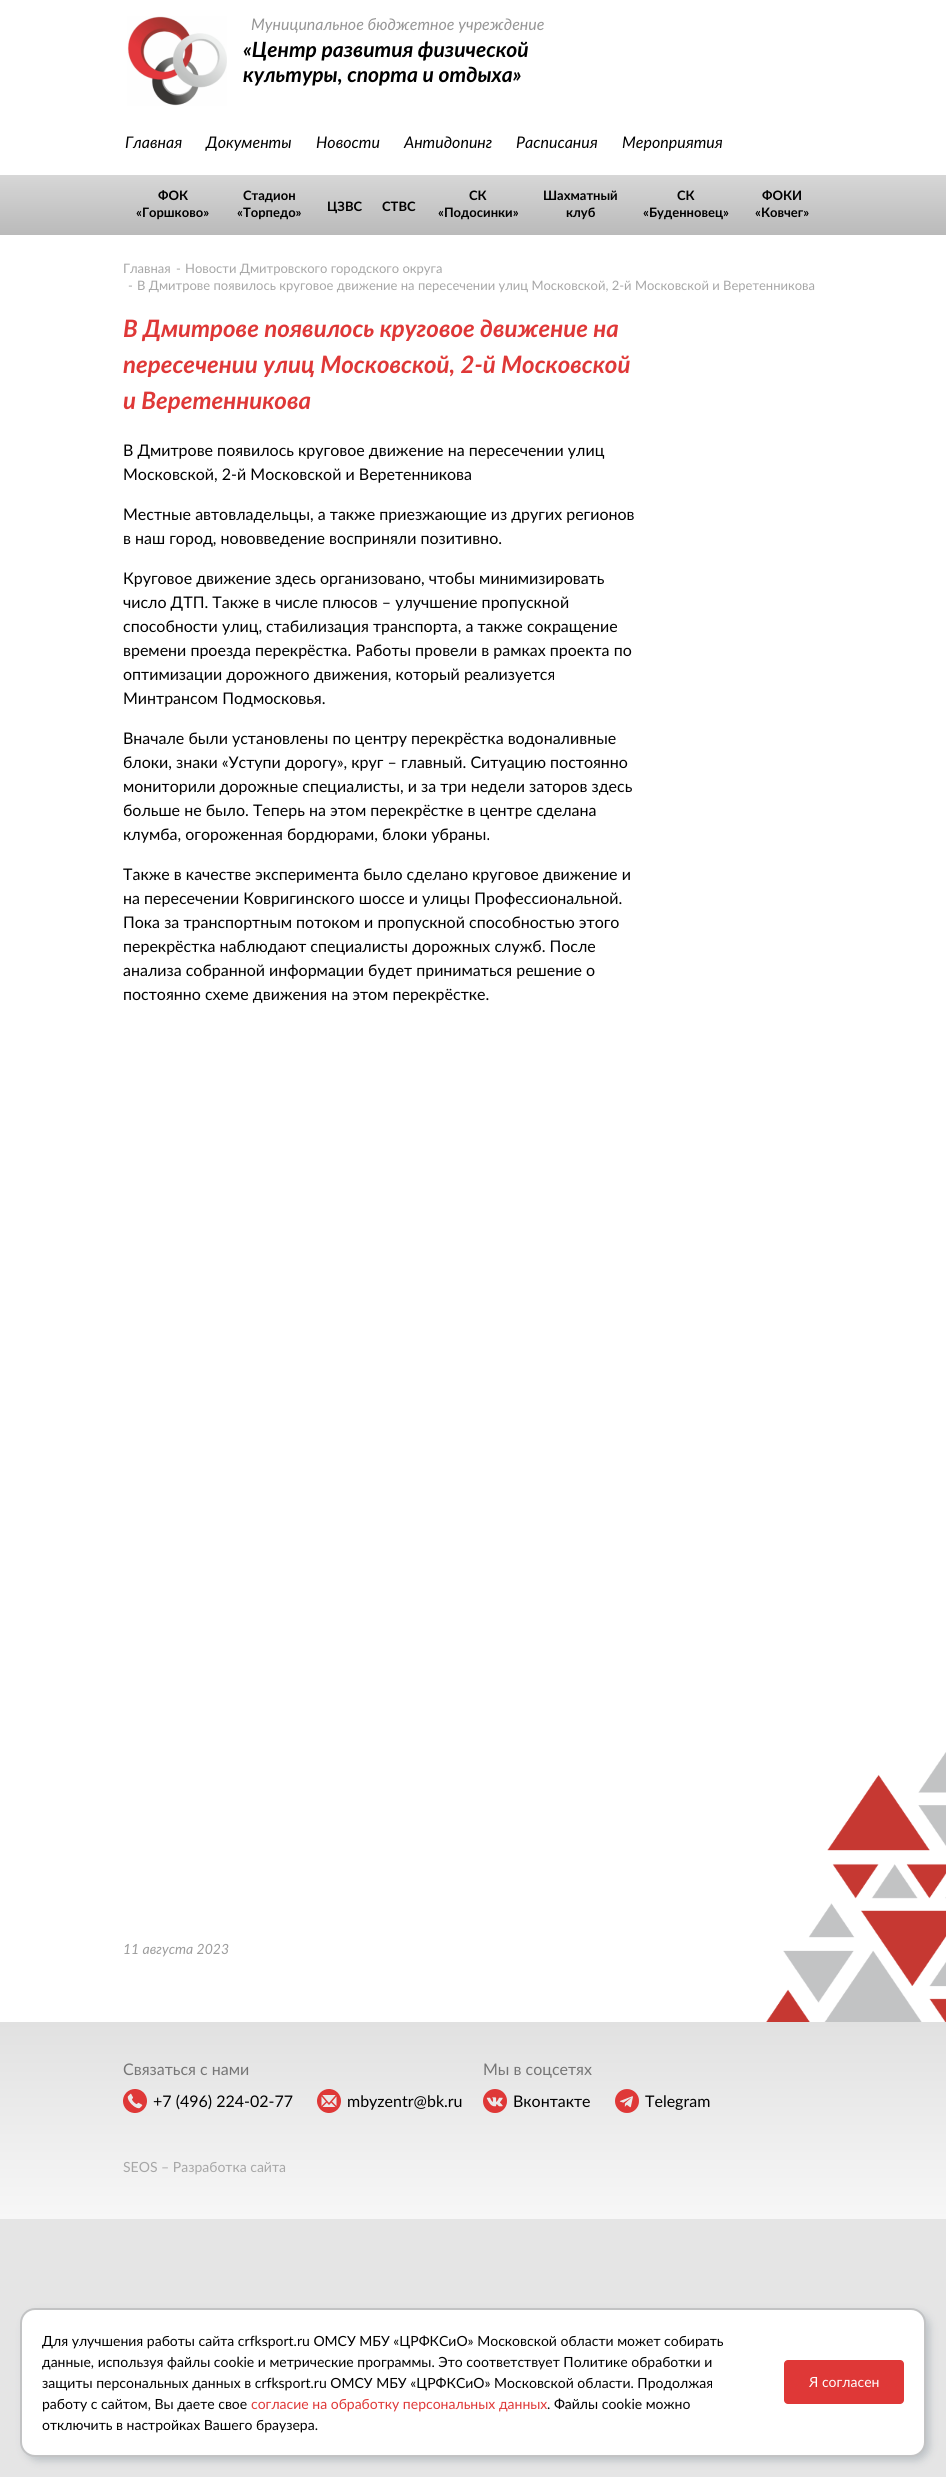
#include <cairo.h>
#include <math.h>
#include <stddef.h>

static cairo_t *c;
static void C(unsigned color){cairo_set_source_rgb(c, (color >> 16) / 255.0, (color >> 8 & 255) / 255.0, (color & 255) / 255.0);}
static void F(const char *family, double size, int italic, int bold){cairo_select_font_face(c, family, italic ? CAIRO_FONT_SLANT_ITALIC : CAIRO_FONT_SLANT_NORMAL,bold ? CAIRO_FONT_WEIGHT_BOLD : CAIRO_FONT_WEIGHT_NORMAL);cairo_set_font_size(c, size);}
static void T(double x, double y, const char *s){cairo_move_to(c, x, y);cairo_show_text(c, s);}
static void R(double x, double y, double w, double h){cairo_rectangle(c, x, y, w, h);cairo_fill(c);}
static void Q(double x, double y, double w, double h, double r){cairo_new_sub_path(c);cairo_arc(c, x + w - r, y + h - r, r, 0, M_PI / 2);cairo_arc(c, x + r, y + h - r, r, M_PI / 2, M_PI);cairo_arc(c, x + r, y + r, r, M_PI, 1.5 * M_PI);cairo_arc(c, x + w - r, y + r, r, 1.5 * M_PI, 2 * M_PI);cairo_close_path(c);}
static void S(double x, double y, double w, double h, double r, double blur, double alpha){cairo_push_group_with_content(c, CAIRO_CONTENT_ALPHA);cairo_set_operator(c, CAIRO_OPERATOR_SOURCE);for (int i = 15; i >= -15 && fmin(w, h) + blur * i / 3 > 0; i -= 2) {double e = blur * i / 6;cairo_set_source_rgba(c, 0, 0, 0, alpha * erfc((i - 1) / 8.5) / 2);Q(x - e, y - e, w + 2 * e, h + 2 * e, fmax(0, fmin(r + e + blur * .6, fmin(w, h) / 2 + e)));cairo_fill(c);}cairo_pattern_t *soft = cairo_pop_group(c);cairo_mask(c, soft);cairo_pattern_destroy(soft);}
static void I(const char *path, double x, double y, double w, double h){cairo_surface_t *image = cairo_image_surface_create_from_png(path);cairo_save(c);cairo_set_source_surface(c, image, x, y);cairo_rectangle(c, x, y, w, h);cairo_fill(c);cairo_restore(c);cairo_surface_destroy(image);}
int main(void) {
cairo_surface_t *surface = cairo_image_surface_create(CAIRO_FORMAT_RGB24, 946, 2477);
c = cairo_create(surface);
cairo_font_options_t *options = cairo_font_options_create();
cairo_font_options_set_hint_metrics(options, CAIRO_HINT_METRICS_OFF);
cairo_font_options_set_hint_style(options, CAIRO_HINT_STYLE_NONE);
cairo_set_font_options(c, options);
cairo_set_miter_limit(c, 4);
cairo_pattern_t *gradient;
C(0xe5e5e5);
cairo_paint(c);
C(0xffffff);
R(0,0,946,2022);
I("1.png",766,1752,180,270);
I("2.png",127,16,100,90);
F("Lato",16,1,0);
C(0x969696);
T(251,30,"Муниципальное бюджетное учреждение");
F("Lato",21,1,1);
C(0x000000);
T(243,57,"«Центр развития физической");
T(243,82,"культуры, спорта и отдыха»");
F("Lato",16,1,0);
T(125,148,"Главная");
T(206,148,"Документы");
T(316,148,"Новости");
T(404,148,"Антидопинг");
T(516,148,"Расписания");
T(622,148,"Мероприятия");
gradient = cairo_pattern_create_linear(473,175,473,235);
cairo_pattern_add_color_stop_rgba(gradient,0,0.843,0.843,0.843,1);
cairo_pattern_add_color_stop_rgba(gradient,1,0.729,0.729,0.729,1);
cairo_set_source(c,gradient);
cairo_pattern_destroy(gradient);
R(0,175,946,60);
F("Lato",13,0,1);
C(0x000000);
T(158,200,"ФОК");
T(136,217,"«Горшково»");
T(243,200,"Стадион");
T(237,217,"«Торпедо»");
T(327,211,"ЦЗВС");
T(382,211,"СТВС");
T(469,200,"СК");
T(438,217,"«Подосинки»");
T(543,200,"Шахматный");
T(566,217,"клуб");
T(677,200,"СК");
T(643,217,"«Буденновец»");
T(762,200,"ФОКИ");
T(755,217,"«Ковчег»");
F("Lato",13,0,0);
C(0xa7a7a7);
T(123,273,"Главная");
T(176,273,"-");
T(185,273,"Новости Дмитровского городского округа");
T(128,290,"-");
T(137,290,"В Дмитрове появилось круговое движение на пересечении улиц Московской, 2-й Московской и Веретенникова");
F("Lato",24,1,1);
C(0xdf3837);
T(123,337,"В Дмитрове появилось круговое движение на");
T(123,373,"пересечении улиц Московской, 2-й Московской");
T(123,409,"и Веретенникова");
F("Lato",16,0,0);
C(0x000000);
T(123,456,"В Дмитрове появилось круговое движение на пересечении улиц");
T(123,480,"Московской, 2-й Московской и Веретенникова");
T(123,520,"Местные автовладельцы, а также приезжающие из других регионов");
T(123,544,"в наш город, нововведение восприняли позитивно.");
T(123,584,"Круговое движение здесь организовано, чтобы минимизировать");
T(123,608,"число ДТП. Также в числе плюсов – улучшение пропускной");
T(123,632,"способности улиц, стабилизация транспорта, а также сокращение");
T(123,656,"времени проезда перекрёстка. Работы провели в рамках проекта по");
T(123,680,"оптимизации дорожного движения, который реализуется");
T(123,704,"Минтрансом Подмосковья.");
T(123,744,"Вначале были установлены по центру перекрёстка водоналивные");
T(123,768,"блоки, знаки «Уступи дорогу», круг – главный. Ситуацию постоянно");
T(123,792,"мониторили дорожные специалисты, и за три недели заторов здесь");
T(123,816,"больше не было. Теперь на этом перекрёстке в центре сделана");
T(123,840,"клумба, огороженная бордюрами, блоки убраны.");
T(123,880,"Также в качестве эксперимента было сделано круговое движение и");
T(123,904,"на пересечении Ковригинского шоссе и улицы Профессиональной.");
T(123,928,"Пока за транспортным потоком и пропускной способностью этого");
T(123,952,"перекрёстка наблюдают специалисты дорожных служб. После");
T(123,976,"анализа собранной информации будет приниматься решение о");
T(123,1000,"постоянно схеме движения на этом перекрёстке.");
F("Lato",14,1,0);
C(0x9c9c9c);
T(123,1954,"11 августа 2023");
gradient = cairo_pattern_create_linear(473,2022,473,2219);
cairo_pattern_add_color_stop_rgba(gradient,0,0.882,0.882,0.882,1);
cairo_pattern_add_color_stop_rgba(gradient,1,0.969,0.969,0.969,1);
cairo_set_source(c,gradient);
cairo_pattern_destroy(gradient);
R(0,2022,946,197);
F("Lato",16,0,0);
C(0x757575);
T(123,2075,"Связаться с нами");
I("3.png",123,2089,24,24);
C(0x000000);
T(153,2107,"+7 (496) 224-02-77");
I("4.png",317,2089,24,24);
T(347,2107,"mbyzentr@bk.ru");
C(0x757575);
T(483,2075,"Мы в соцсетях");
I("5.png",483,2089,24,24);
C(0x000000);
T(513,2107,"Вконтакте");
I("6.png",615,2089,24,24);
T(645,2107,"Telegram");
F("Lato",14,0,0);
C(0xa7a7a7);
T(123,2172,"SEOS – Разработка сайта");
C(0x223c50);
S(24,2312,906,149,15,4,.2);
C(0xffffff);
Q(21,2309,904,147,14);
cairo_fill_preserve(c);
C(0xc2c3c4);
cairo_stroke(c);
C(0x000000);
T(42,2346,"Для улучшения работы сайта crfksport.ru ОМСУ МБУ «ЦРФКСиО» Московской области может собирать");
T(42,2367,"данные, используя файлы cookie и метрические программы. Это соответствует Политике обработки и");
T(42,2388,"защиты персональных данных в crfksport.ru ОМСУ МБУ «ЦРФКСиО» Московской области. Продолжая");
T(42,2409,"работу с сайтом, Вы даете свое");
C(0xdf3837);
T(251,2409,"согласие на обработку персональных данных");
C(0x000000);
T(547,2409,". Файлы cookie можно");
T(42,2430,"отключить в настройках Вашего браузера.");
C(0xdf3837);
Q(784,2360,120,44,4);
cairo_fill(c);
C(0xffffff);
T(809,2387,"Я согласен");
cairo_surface_write_to_png(surface, "o.png");
cairo_font_options_destroy(options);
cairo_destroy(c);
cairo_surface_destroy(surface);
return 0;
}
